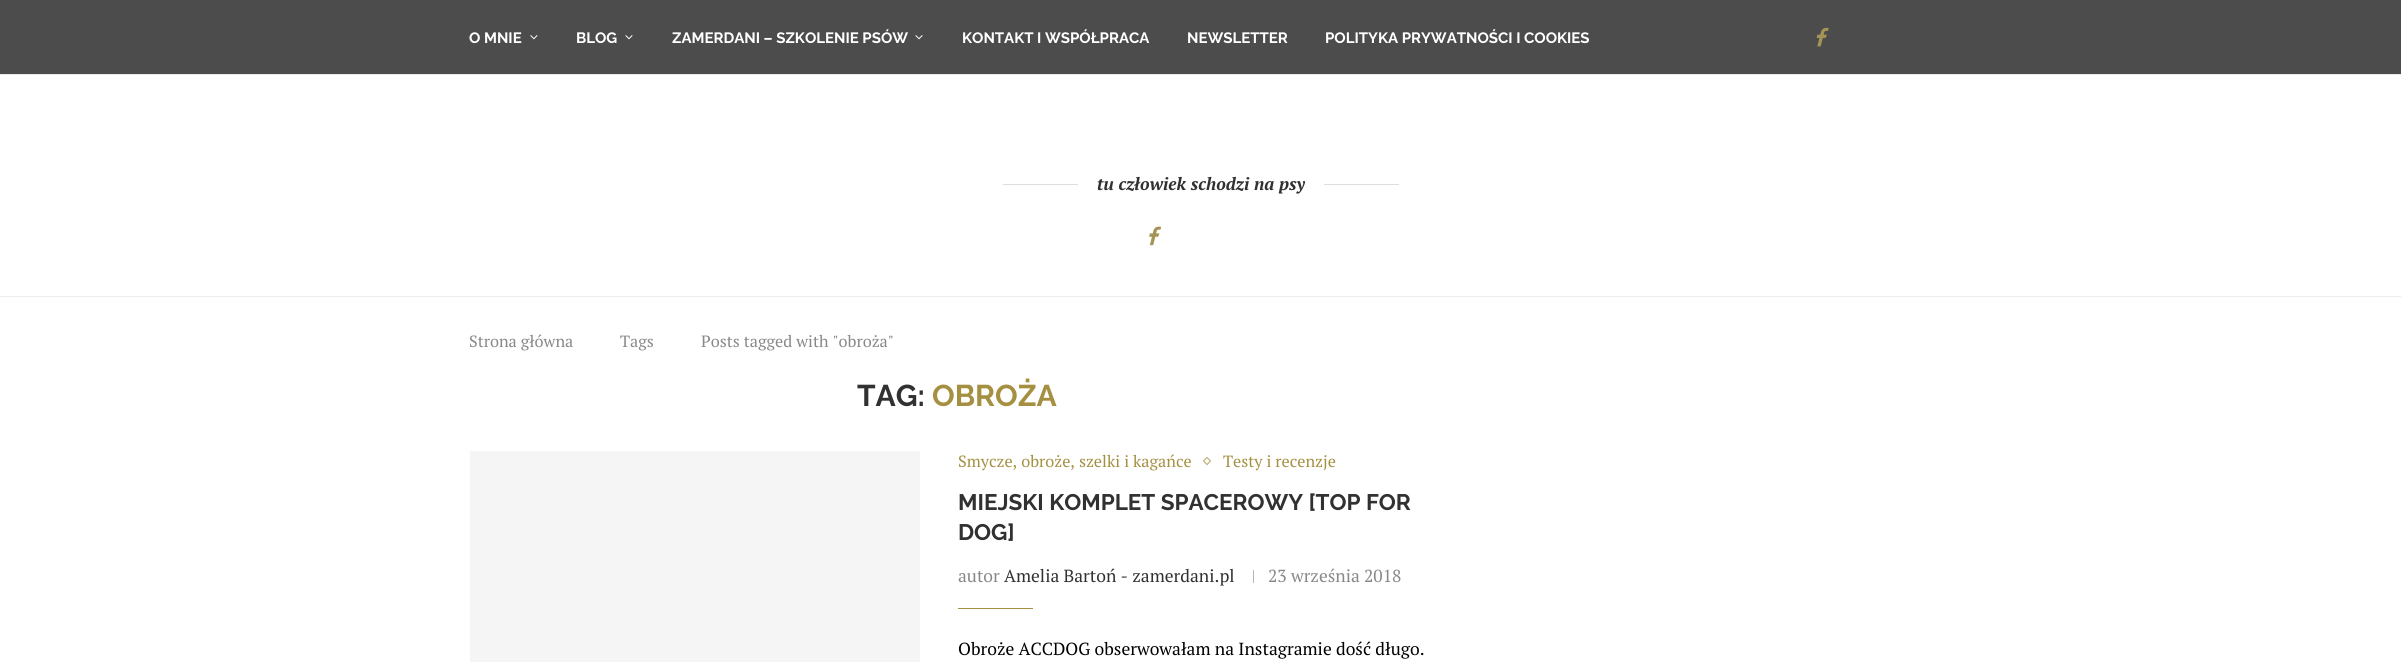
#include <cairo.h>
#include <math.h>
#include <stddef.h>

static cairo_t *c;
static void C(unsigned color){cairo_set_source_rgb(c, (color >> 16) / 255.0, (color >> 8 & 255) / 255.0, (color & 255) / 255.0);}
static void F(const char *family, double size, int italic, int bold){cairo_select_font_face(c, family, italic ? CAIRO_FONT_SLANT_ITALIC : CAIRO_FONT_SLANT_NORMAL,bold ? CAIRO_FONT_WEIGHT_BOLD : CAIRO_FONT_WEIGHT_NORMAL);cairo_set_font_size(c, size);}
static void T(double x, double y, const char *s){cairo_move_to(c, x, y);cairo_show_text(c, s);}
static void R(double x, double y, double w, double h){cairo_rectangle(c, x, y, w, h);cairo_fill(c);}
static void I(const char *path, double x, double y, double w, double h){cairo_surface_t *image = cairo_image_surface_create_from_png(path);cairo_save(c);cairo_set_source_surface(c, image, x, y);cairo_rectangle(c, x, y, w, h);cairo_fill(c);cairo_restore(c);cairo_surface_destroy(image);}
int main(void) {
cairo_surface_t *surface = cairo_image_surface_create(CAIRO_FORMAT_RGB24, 2401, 662);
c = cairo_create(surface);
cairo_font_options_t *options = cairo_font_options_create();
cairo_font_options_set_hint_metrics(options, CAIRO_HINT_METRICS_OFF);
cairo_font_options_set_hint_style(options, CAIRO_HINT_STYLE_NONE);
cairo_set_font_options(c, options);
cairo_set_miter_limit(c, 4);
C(0xffffff);
cairo_paint(c);
C(0x4c4c4c);
R(0,0,2401,74);
C(0xeaeaea);
R(0,74,2401,1);
F("Raleway",15,0,1);
C(0xffffff);
T(469,43,"O MNIE");
I("1.png",530,35,8,5);
T(576,43,"BLOG");
I("2.png",625,35,8,5);
T(672,43,"ZAMERDANI – SZKOLENIE PSÓW");
I("3.png",915,35,8,5);
T(962,43,"KONTAKT I WSPÓŁPRACA");
T(1187,43,"NEWSLETTER");
T(1325,43,"POLITYKA PRYWATNOŚCI I COOKIES");
I("4.png",1816,27,13,20);
C(0xececec);
R(0,296,2401,1);
C(0xdedede);
R(1003,184,75,1);
F("PT Serif",17.5,1,1);
C(0x313131);
T(1097,190,"tu człowiek schodzi na psy");
C(0xdedede);
R(1324,184,75,1);
I("5.png",1149,226,13,20);
F("PT Serif",16.25,0,0);
C(0x888888);
T(469,347,"Strona główna");
T(620,347,"Tags");
T(701,347,"Posts tagged with \"obroża\"");
F("Raleway",30,0,1);
C(0x313131);
T(857,406,"TAG:");
C(0xa58f41);
T(932,406,"OBROŻA");
C(0xf5f5f5);
R(470,451,450,211);
F("PT Serif",16.25,0,0);
C(0xa58f41);
T(958,467,"Smycze, obroże, szelki i kagańce");
cairo_new_path(c);
cairo_move_to(c,1207,457.5);
cairo_line_to(c,1210.5,461);
cairo_line_to(c,1207,464.5);
cairo_line_to(c,1203.5,461);
cairo_close_path(c);
C(0xc5b684);
cairo_set_line_width(c,1.3);
cairo_stroke(c);
C(0xa58f41);
T(1223,467,"Testy i recenzje");
F("Raleway",22.5,0,1);
C(0x313131);
T(958,510,"MIEJSKI KOMPLET SPACEROWY [TOP FOR");
T(958,540,"DOG]");
F("PT Serif",17.5,0,0);
C(0x888888);
T(958,582,"autor");
C(0x313131);
T(1004,582,"Amelia Bartoń - zamerdani.pl");
C(0xb8b8b8);
R(1253,570,1,13);
C(0x888888);
T(1268,582,"23 września 2018");
C(0xa58f41);
R(958,608,75,1);
C(0x000000);
T(958,655,"Obroże ACCDOG obserwowałam na Instagramie dość długo.");
cairo_surface_write_to_png(surface, "o.png");
cairo_font_options_destroy(options);
cairo_destroy(c);
cairo_surface_destroy(surface);
return 0;
}
